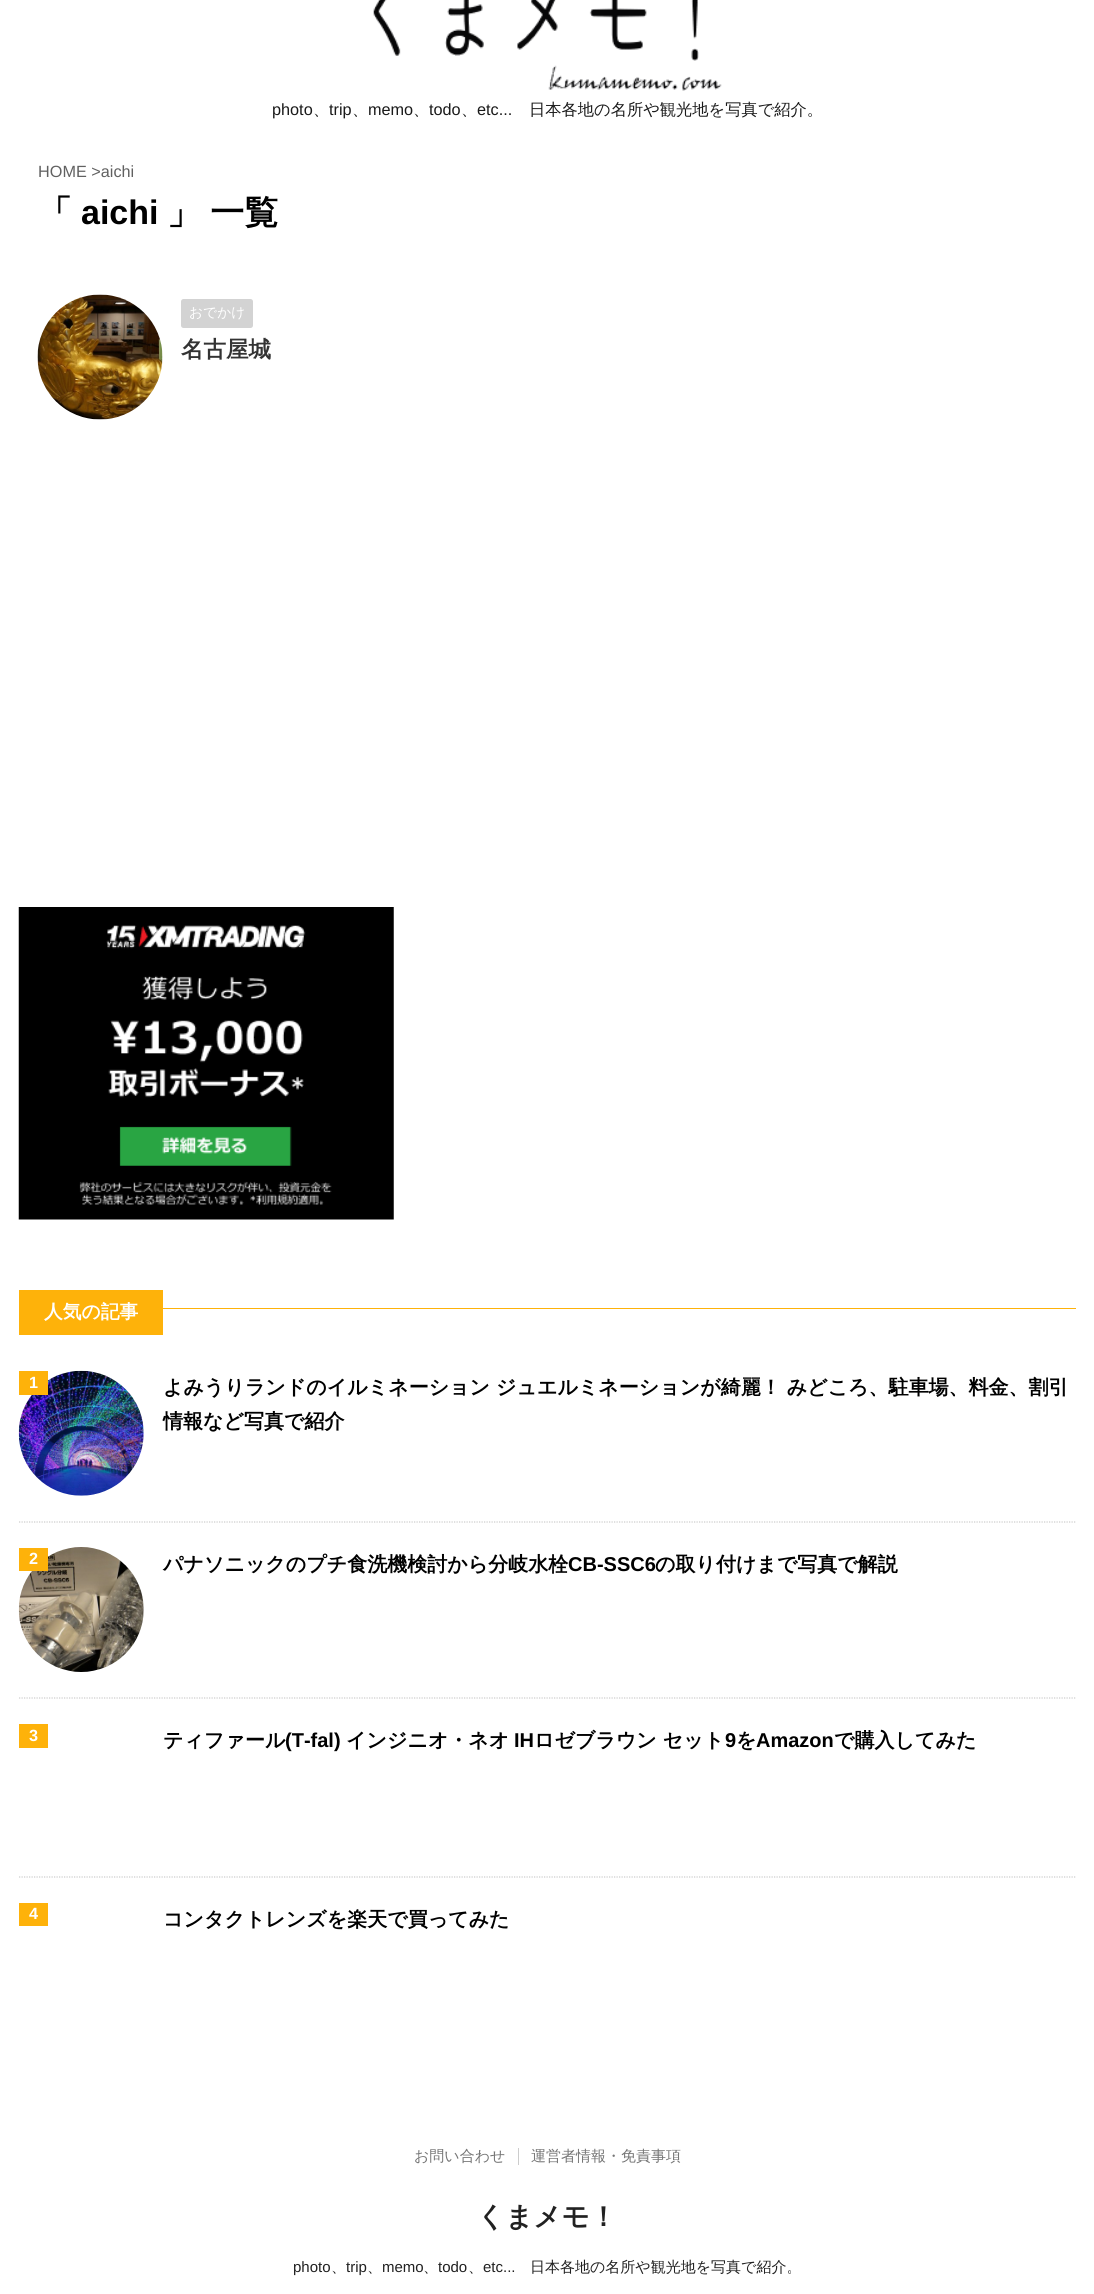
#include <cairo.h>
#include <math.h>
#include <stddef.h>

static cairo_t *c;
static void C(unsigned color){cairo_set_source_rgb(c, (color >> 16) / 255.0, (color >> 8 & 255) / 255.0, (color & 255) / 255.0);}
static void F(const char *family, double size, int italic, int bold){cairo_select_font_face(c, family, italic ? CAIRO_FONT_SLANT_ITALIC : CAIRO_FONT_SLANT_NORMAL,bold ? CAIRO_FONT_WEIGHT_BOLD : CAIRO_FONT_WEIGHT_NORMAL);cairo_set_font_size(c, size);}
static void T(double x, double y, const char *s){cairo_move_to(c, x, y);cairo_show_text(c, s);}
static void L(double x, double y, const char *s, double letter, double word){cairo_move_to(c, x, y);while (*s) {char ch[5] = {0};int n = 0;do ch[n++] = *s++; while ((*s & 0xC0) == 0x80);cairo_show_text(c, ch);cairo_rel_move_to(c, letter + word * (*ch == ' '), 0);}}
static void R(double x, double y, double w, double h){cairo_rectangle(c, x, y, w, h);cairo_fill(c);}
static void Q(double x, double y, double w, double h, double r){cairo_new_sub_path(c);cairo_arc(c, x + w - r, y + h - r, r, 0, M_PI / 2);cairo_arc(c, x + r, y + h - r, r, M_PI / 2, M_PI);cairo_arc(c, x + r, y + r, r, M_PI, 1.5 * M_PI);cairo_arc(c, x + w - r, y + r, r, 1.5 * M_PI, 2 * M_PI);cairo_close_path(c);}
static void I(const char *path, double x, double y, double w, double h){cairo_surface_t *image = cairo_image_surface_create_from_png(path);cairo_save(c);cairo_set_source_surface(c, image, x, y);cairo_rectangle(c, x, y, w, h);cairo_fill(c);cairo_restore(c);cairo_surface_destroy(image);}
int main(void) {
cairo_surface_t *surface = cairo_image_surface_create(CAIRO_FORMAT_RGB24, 1094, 2294);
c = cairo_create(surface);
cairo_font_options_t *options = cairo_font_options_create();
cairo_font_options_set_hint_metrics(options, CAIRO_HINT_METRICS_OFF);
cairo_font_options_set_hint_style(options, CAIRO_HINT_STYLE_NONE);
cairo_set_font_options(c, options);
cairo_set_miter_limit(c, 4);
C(0xffffff);
cairo_paint(c);
I("1.png",373,0,349,91);
F("Liberation Sans",16.25,0,0);
C(0x1a1a1a);
T(272,115,"photo");
F("WenQuanYi Zen Hei Medium",16.25,0,0);
T(313,115,"、");
F("Liberation Sans",16.25,0,0);
T(329,115,"trip");
F("WenQuanYi Zen Hei Medium",16.25,0,0);
T(352,115,"、");
F("Liberation Sans",16.25,0,0);
T(368,115,"memo");
F("WenQuanYi Zen Hei Medium",16.25,0,0);
T(413,115,"、");
F("Liberation Sans",16.25,0,0);
T(429,115,"todo");
F("WenQuanYi Zen Hei Medium",16.25,0,0);
T(461,115,"、");
F("Liberation Sans",16.25,0,0);
T(477,115,"etc...");
F("WenQuanYi Zen Hei Medium",16.25,0,0);
T(529,115,"日本各地の名所や観光地を写真で紹介。");
F("Liberation Sans",16.25,0,0);
C(0x616161);
T(38,177,"HOME >aichi");
F("WenQuanYi Zen Hei",34,0,1);
C(0x000000);
T(38,224,"「");
F("Liberation Sans",34,0,1);
T(81,224,"aichi");
F("WenQuanYi Zen Hei",34,0,1);
L(167,224,"」 一覧",0,-1);
I("2.png",37,294,126,126);
C(0xd3d3d3);
Q(181,299,72,29,2.5);
cairo_fill(c);
F("WenQuanYi Zen Hei Medium",13.75,0,0);
C(0xffffff);
T(189,317,"おでかけ");
F("WenQuanYi Zen Hei",22.5,0,1);
C(0x333333);
T(181,357,"名古屋城");
I("3.png",18,907,376,313);
C(0xfeb20a);
R(163,1308,913,1);
R(19,1290,144,45);
F("WenQuanYi Zen Hei",18.75,0,1);
C(0xffffff);
T(44,1318,"人気の記事");
cairo_new_path(c);
cairo_move_to(c,19,1522);
cairo_line_to(c,1076,1522);
C(0xcccccc);
cairo_set_line_width(c,1.2);
cairo_set_dash(c,(double[]){1.25,1.25},2,0);
cairo_stroke(c);
I("4.png",18,1370,126,126);
C(0xfeb20a);
R(19,1371,29,24);
F("Liberation Sans",16.25,0,1);
C(0xffffff);
T(29,1388,"1");
F("WenQuanYi Zen Hei",20,0,1);
C(0x000000);
T(163,1394,"よみうりランドのイルミネーション ジュエルミネーションが綺麗！ みどころ、駐車場、料金、割引");
T(163,1428,"情報など写真で紹介");
cairo_new_path(c);
cairo_move_to(c,19,1698);
cairo_line_to(c,1076,1698);
C(0xcccccc);
cairo_stroke(c);
I("5.png",18,1547,126,125);
C(0xfeb20a);
R(19,1548,29,23);
F("Liberation Sans",16.25,0,1);
C(0xffffff);
T(29,1564,"2");
F("WenQuanYi Zen Hei",20,0,1);
C(0x000000);
T(163,1571,"パナソニックのプチ食洗機検討から分岐水栓");
F("Liberation Sans",20,0,1);
T(568,1571,"CB-SSC6");
F("WenQuanYi Zen Hei",20,0,1);
T(655,1571,"の取り付けまで写真で解説");
cairo_new_path(c);
cairo_move_to(c,19,1877);
cairo_line_to(c,1076,1877);
C(0xcccccc);
cairo_stroke(c);
C(0xfeb20a);
R(19,1724,29,24);
F("Liberation Sans",16.25,0,1);
C(0xffffff);
T(29,1741,"3");
F("WenQuanYi Zen Hei",20,0,1);
C(0x000000);
T(163,1747,"ティファール");
F("Liberation Sans",20,0,1);
T(285,1747,"(T-fal)");
F("WenQuanYi Zen Hei",20,0,1);
T(346,1747,"インジニオ・ネオ");
F("Liberation Sans",20,0,1);
T(514,1747,"IH");
F("WenQuanYi Zen Hei",20,0,1);
T(534,1747,"ロゼブラウン セット");
F("Liberation Sans",20,0,1);
T(725,1747,"9");
F("WenQuanYi Zen Hei",20,0,1);
T(736,1747,"を");
F("Liberation Sans",20,0,1);
T(756,1747,"Amazon");
F("WenQuanYi Zen Hei",20,0,1);
T(834,1747,"で購入してみた");
C(0xfeb20a);
R(19,1903,29,23);
F("Liberation Sans",16.25,0,1);
C(0xffffff);
T(29,1919,"4");
F("WenQuanYi Zen Hei",20,0,1);
C(0x000000);
T(163,1926,"コンタクトレンズを楽天で買ってみた");
F("WenQuanYi Zen Hei Medium",15,0,0);
C(0x757575);
T(414,2161,"お問い合わせ");
C(0xcccccc);
R(518,2148,1,17);
C(0x757575);
T(531,2161,"運営者情報・免責事項");
F("WenQuanYi Zen Hei",27.5,0,1);
C(0x212121);
T(477,2226,"くまメモ！");
F("Liberation Sans",15,0,0);
T(293,2272,"photo");
F("WenQuanYi Zen Hei Medium",15,0,0);
T(331,2272,"、");
F("Liberation Sans",15,0,0);
T(346,2272,"trip");
F("WenQuanYi Zen Hei Medium",15,0,0);
T(367,2272,"、");
F("Liberation Sans",15,0,0);
T(382,2272,"memo");
F("WenQuanYi Zen Hei Medium",15,0,0);
T(423,2272,"、");
F("Liberation Sans",15,0,0);
T(438,2272,"todo");
F("WenQuanYi Zen Hei Medium",15,0,0);
T(468,2272,"、");
F("Liberation Sans",15,0,0);
T(483,2272,"etc...");
F("WenQuanYi Zen Hei Medium",15,0,0);
T(530,2272,"日本各地の名所や観光地を写真で紹介。");
cairo_surface_write_to_png(surface, "o.png");
cairo_font_options_destroy(options);
cairo_destroy(c);
cairo_surface_destroy(surface);
return 0;
}
